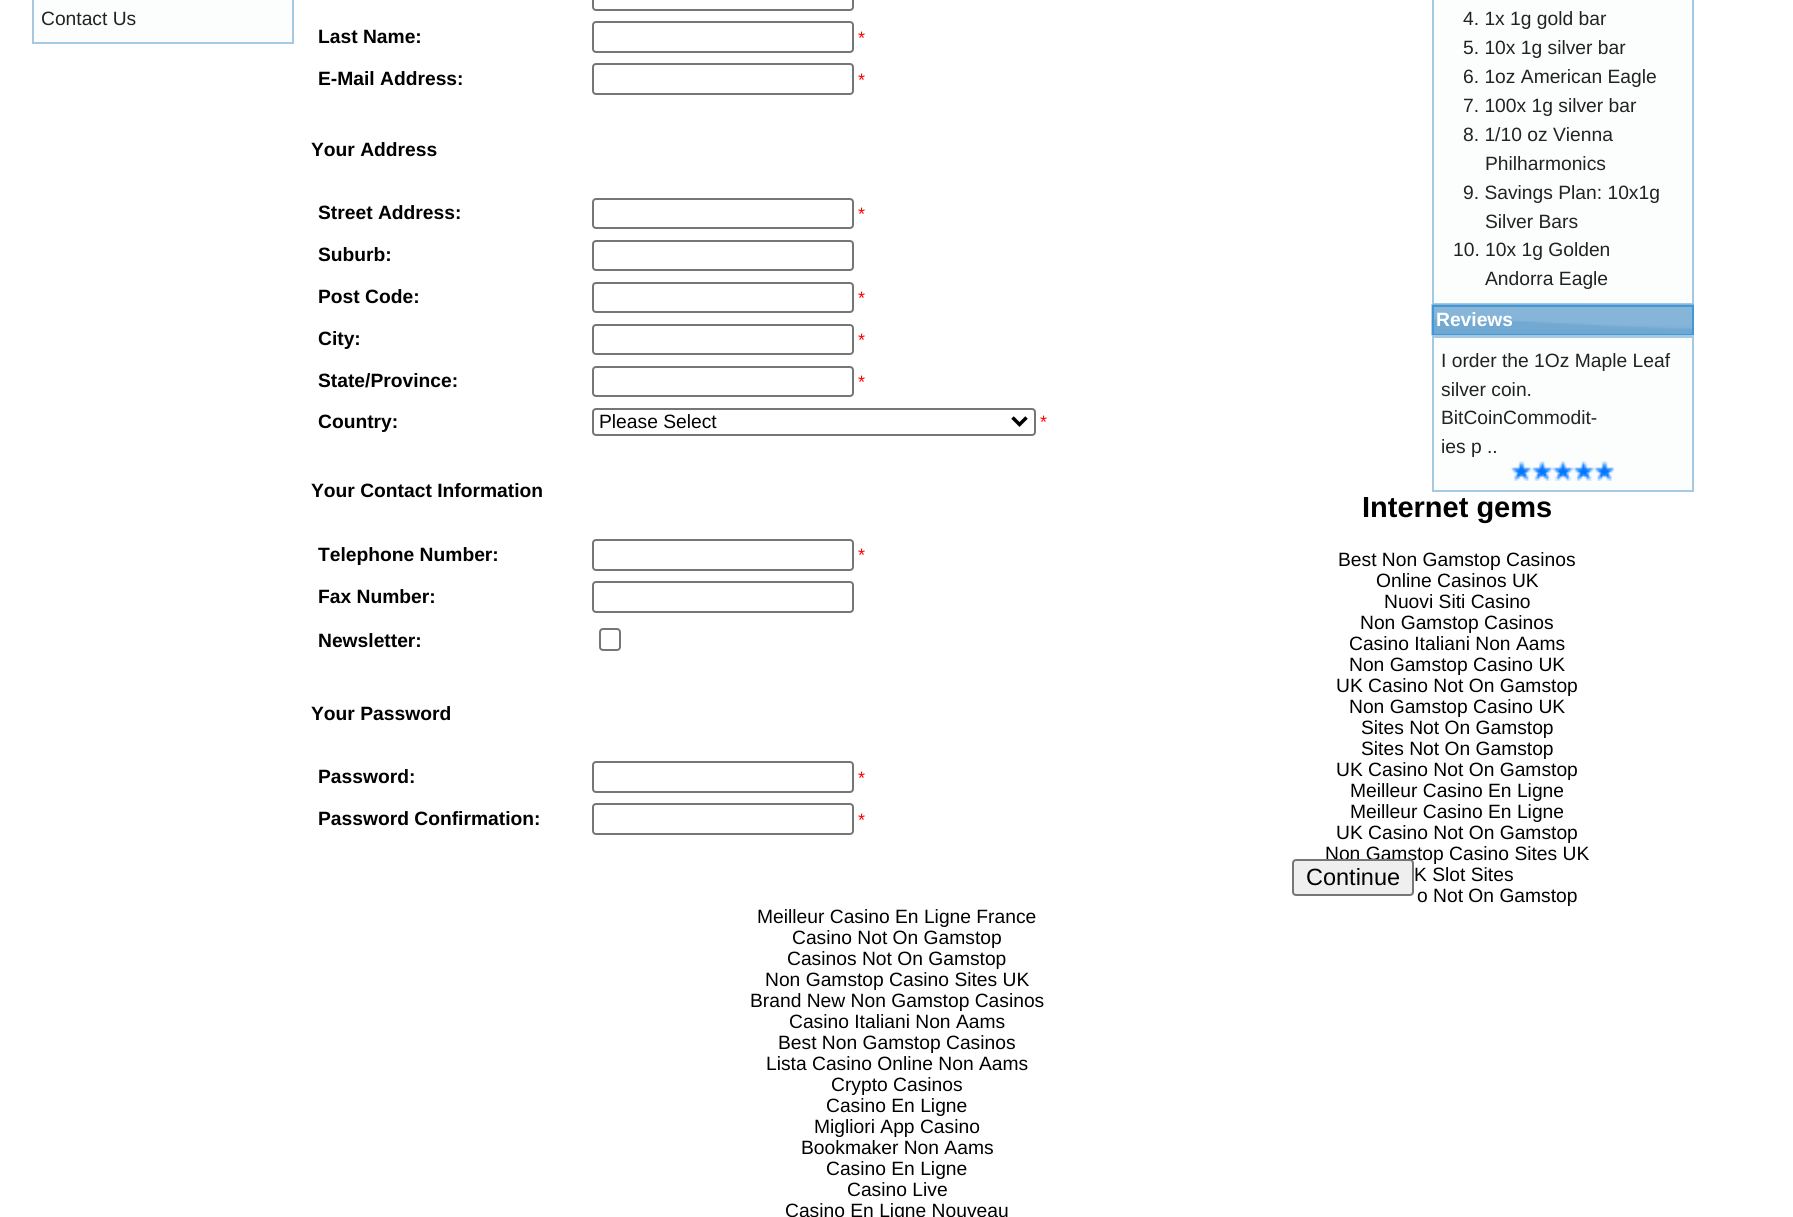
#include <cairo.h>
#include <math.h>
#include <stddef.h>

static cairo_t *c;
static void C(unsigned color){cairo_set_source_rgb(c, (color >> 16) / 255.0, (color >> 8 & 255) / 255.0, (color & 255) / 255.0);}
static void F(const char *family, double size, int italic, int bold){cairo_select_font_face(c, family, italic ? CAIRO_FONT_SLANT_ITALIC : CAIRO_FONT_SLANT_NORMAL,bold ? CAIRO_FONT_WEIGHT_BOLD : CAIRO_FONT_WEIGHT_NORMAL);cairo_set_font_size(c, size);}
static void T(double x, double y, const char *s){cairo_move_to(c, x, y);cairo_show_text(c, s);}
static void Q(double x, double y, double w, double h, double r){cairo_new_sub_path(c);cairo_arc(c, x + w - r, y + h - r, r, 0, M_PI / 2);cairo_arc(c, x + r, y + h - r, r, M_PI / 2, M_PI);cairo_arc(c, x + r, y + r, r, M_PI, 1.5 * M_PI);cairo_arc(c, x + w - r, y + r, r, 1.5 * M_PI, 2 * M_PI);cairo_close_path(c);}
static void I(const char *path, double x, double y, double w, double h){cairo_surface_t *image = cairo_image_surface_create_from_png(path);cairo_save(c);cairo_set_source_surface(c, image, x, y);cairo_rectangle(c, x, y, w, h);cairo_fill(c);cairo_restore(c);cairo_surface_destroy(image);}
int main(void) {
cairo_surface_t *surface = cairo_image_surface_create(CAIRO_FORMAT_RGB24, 1793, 1217);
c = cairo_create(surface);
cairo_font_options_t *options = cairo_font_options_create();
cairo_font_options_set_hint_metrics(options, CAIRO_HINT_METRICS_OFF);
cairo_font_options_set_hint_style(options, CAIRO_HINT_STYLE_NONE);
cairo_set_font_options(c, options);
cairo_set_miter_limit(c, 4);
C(0xffffff);
cairo_paint(c);
C(0xfcfdfd);
cairo_rectangle(c,33,-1,260,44);
cairo_fill_preserve(c);
C(0xa6c9e2);
cairo_stroke(c);
F("Liberation Sans",19.25,0,0);
C(0x222222);
T(41,25,"Contact Us");
Q(593,-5,260,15,3);
C(0x767676);
cairo_stroke(c);
F("Liberation Sans",19.25,0,1);
C(0x000000);
T(318,43,"Last Name:");
Q(593,22,260,30,3);
C(0x767676);
cairo_stroke(c);
F("Liberation Sans",18,0,0);
C(0xff0000);
T(858,44,"*");
F("Liberation Sans",19.25,0,1);
C(0x000000);
T(318,85,"E-Mail Address:");
Q(593,64,260,30,3);
C(0x767676);
cairo_stroke(c);
F("Liberation Sans",18,0,0);
C(0xff0000);
T(858,86,"*");
F("Liberation Sans",19.25,0,1);
C(0x000000);
T(311,156,"Your Address");
T(318,219,"Street Address:");
Q(593,199,260,29,3);
C(0x767676);
cairo_stroke(c);
F("Liberation Sans",18,0,0);
C(0xff0000);
T(858,220,"*");
F("Liberation Sans",19.25,0,1);
C(0x000000);
T(318,261,"Suburb:");
Q(593,241,260,29,3);
C(0x767676);
cairo_stroke(c);
C(0x000000);
T(318,303,"Post Code:");
Q(593,283,260,29,3);
C(0x767676);
cairo_stroke(c);
F("Liberation Sans",18,0,0);
C(0xff0000);
T(858,304,"*");
F("Liberation Sans",19.25,0,1);
C(0x000000);
T(318,345,"City:");
Q(593,325,260,29,3);
C(0x767676);
cairo_stroke(c);
F("Liberation Sans",18,0,0);
C(0xff0000);
T(858,346,"*");
F("Liberation Sans",19.25,0,1);
C(0x000000);
T(318,387,"State/Province:");
Q(593,367,260,29,3);
C(0x767676);
cairo_stroke(c);
F("Liberation Sans",18,0,0);
C(0xff0000);
T(858,388,"*");
F("Liberation Sans",19.25,0,1);
C(0x000000);
T(318,428,"Country:");
Q(593,409,442,26,3);
C(0x767676);
cairo_stroke(c);
cairo_new_path(c);
cairo_move_to(c,1012.5,417.5);
cairo_line_to(c,1019.5,424.5);
cairo_line_to(c,1026.5,417.5);
C(0x000000);
cairo_set_line_width(c,3.5);
cairo_stroke(c);
F("Liberation Sans",19.25,0,0);
T(599,428,"Please Select");
F("Liberation Sans",18,0,0);
C(0xff0000);
T(1040,428,"*");
F("Liberation Sans",19.25,0,1);
C(0x000000);
T(311,497,"Your Contact Information");
T(318,561,"Telephone Number:");
Q(593,540,260,30,3);
C(0x767676);
cairo_set_line_width(c,2);
cairo_stroke(c);
F("Liberation Sans",18,0,0);
C(0xff0000);
T(858,561,"*");
F("Liberation Sans",19.25,0,1);
C(0x000000);
T(318,603,"Fax Number:");
Q(593,582,260,30,3);
C(0x767676);
cairo_stroke(c);
C(0x000000);
T(318,647,"Newsletter:");
Q(600,629,20,21,3);
C(0x767676);
cairo_stroke(c);
C(0x000000);
T(311,720,"Your Password");
T(318,783,"Password:");
Q(593,762,260,30,3);
C(0x767676);
cairo_stroke(c);
F("Liberation Sans",18,0,0);
C(0xff0000);
T(858,784,"*");
F("Liberation Sans",19.25,0,1);
C(0x000000);
T(318,825,"Password Confirmation:");
Q(593,804,260,30,3);
C(0x767676);
cairo_stroke(c);
F("Liberation Sans",18,0,0);
C(0xff0000);
T(858,826,"*");
F("Liberation Sans",19.25,0,0);
C(0x000000);
T(1325,860,"Non Gamstop Casino Sites UK");
C(0xefefef);
Q(1293,860,120,35,3);
cairo_fill_preserve(c);
C(0x767676);
cairo_stroke(c);
F("Liberation Sans",23.5,0,0);
C(0x000000);
T(1306,885,"Continue");
C(0xfcfdfd);
cairo_rectangle(c,1433,-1,260,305);
cairo_fill_preserve(c);
C(0xa6c9e2);
cairo_stroke(c);
F("Liberation Sans",19.25,0,0);
C(0x222222);
T(1463,25,"4. 1x 1g gold bar");
T(1463,54,"5. 10x 1g silver bar");
T(1463,83,"6. 1oz American Eagle");
T(1463,112,"7. 100x 1g silver bar");
T(1463,141,"8. 1/10 oz Vienna");
T(1485,170,"Philharmonics");
T(1463,199,"9. Savings Plan: 10x1g");
T(1485,228,"Silver Bars");
T(1453,256,"10. 10x 1g Golden");
T(1485,285,"Andorra Eagle");
I("1.png",1431,304,263,32);
cairo_rectangle(c,1433,306,260,29);
C(0x4297d7);
cairo_stroke(c);
F("Liberation Sans",19.25,0,1);
C(0xffffff);
T(1436,326,"Reviews");
C(0xfcfdfd);
cairo_rectangle(c,1433,337,260,154);
cairo_fill_preserve(c);
C(0xa6c9e2);
cairo_stroke(c);
I("2.png",1431,335,263,1);
F("Liberation Sans",19.25,0,0);
C(0x222222);
T(1441,367,"I order the 1Oz Maple Leaf");
T(1441,396,"silver coin.");
T(1441,424,"BitCoinCommodit-");
T(1441,453,"ies p ..");
I("3.png",1510,461,104,20);
F("Liberation Sans",29,0,1);
C(0x000000);
T(1362,517,"Internet gems");
F("Liberation Sans",19.25,0,0);
T(1338,566,"Best Non Gamstop Casinos");
T(1376,587,"Online Casinos UK");
T(1384,608,"Nuovi Siti Casino");
T(1360,629,"Non Gamstop Casinos");
T(1349,650,"Casino Italiani Non Aams");
T(1349,671,"Non Gamstop Casino UK");
T(1336,692,"UK Casino Not On Gamstop");
T(1349,713,"Non Gamstop Casino UK");
T(1361,734,"Sites Not On Gamstop");
T(1361,755,"Sites Not On Gamstop");
T(1336,776,"UK Casino Not On Gamstop");
T(1350,797,"Meilleur Casino En Ligne");
T(1350,818,"Meilleur Casino En Ligne");
T(1336,839,"UK Casino Not On Gamstop");
T(1414,881,"K Slot Sites");
T(1417,902,"o Not On Gamstop");
T(757,923,"Meilleur Casino En Ligne France");
T(792,944,"Casino Not On Gamstop");
T(787,965,"Casinos Not On Gamstop");
T(765,986,"Non Gamstop Casino Sites UK");
T(750,1007,"Brand New Non Gamstop Casinos");
T(789,1028,"Casino Italiani Non Aams");
T(778,1049,"Best Non Gamstop Casinos");
T(766,1070,"Lista Casino Online Non Aams");
T(831,1091,"Crypto Casinos");
T(826,1112,"Casino En Ligne");
T(814,1133,"Migliori App Casino");
T(801,1154,"Bookmaker Non Aams");
T(826,1175,"Casino En Ligne");
T(847,1196,"Casino Live");
T(785,1217,"Casino En Ligne Nouveau");
cairo_surface_write_to_png(surface, "o.png");
cairo_font_options_destroy(options);
cairo_destroy(c);
cairo_surface_destroy(surface);
return 0;
}
